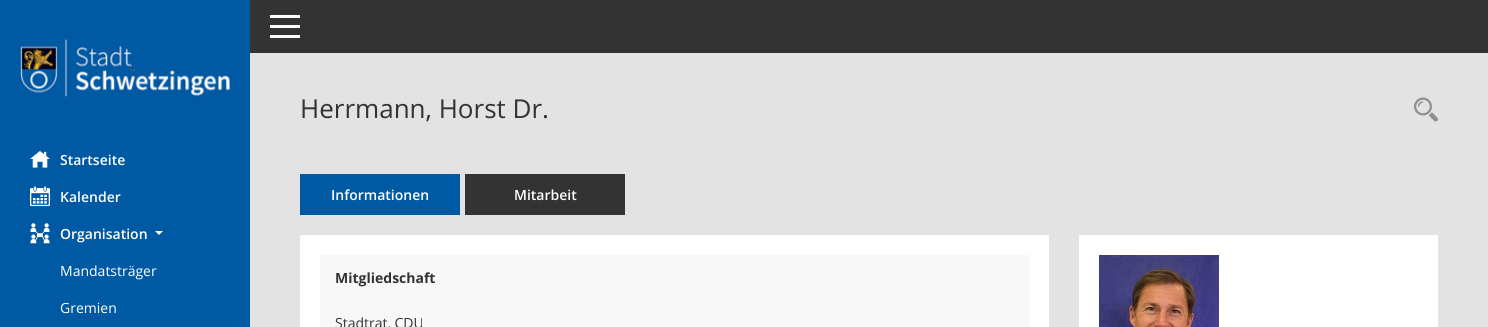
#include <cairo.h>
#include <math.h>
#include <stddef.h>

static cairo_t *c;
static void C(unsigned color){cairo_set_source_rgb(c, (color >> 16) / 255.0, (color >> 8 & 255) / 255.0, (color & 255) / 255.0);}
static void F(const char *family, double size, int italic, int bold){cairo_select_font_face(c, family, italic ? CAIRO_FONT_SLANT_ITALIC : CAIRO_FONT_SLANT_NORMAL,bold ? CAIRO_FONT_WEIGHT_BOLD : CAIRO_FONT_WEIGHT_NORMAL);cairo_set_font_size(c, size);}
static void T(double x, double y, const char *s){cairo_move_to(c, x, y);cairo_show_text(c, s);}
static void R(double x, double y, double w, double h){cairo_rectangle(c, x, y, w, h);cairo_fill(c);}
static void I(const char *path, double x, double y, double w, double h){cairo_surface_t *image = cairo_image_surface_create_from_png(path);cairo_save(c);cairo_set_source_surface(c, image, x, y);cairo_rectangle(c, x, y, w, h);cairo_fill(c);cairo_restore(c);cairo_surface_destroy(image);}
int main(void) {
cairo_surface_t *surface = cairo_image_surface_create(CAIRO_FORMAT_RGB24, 1488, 327);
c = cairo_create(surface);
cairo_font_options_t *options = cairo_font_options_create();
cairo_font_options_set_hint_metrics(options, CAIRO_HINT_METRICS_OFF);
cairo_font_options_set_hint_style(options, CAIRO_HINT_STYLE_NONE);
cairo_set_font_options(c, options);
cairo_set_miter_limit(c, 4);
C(0xe3e3e3);
cairo_paint(c);
C(0x005aa3);
R(0,0,250,327);
I("1.png",20,39,211,58);
I("2.png",30,151,20,17);
F("Open Sans SemiBold",14,0,0);
C(0xffffff);
T(60,165,"Startseite");
I("3.png",30,186,20,21);
T(60,202,"Kalender");
I("4.png",30,223,20,21);
T(60,239,"Organisation");
cairo_new_path(c);
cairo_move_to(c,155,231);
cairo_line_to(c,163,231);
cairo_line_to(c,159,235);
cairo_close_path(c);
cairo_fill(c);
F("Open Sans",14,0,0);
T(60,276,"Mandatsträger");
T(60,313,"Gremien");
C(0x333333);
R(250,0,1238,53);
C(0xffffff);
R(270,15,30,3);
R(270,25,30,3);
R(270,35,30,3);
F("Open Sans",26,0,0);
C(0x333333);
T(300,118,"Herrmann, Horst Dr.");
I("5.png",1414,97,24,25);
C(0xdee2e6);
R(460,214,978,1);
C(0x005aa3);
R(300,174,160,41);
F("Open Sans SemiBold",14,0,0);
C(0xffffff);
T(331,200,"Informationen");
C(0x333333);
R(465,174,160,41);
C(0xffffff);
T(514,200,"Mitarbeit");
R(300,235,749,92);
C(0xf8f8f8);
R(320,255,709,72);
F("Open Sans",14,0,1);
C(0x333333);
T(335,283,"Mitgliedschaft");
F("Open Sans",14,0,0);
T(335,328,"Stadtrat, CDU");
C(0xffffff);
R(1079,235,359,92);
I("6.png",1099,255,120,72);
cairo_surface_write_to_png(surface, "o.png");
cairo_font_options_destroy(options);
cairo_destroy(c);
cairo_surface_destroy(surface);
return 0;
}
